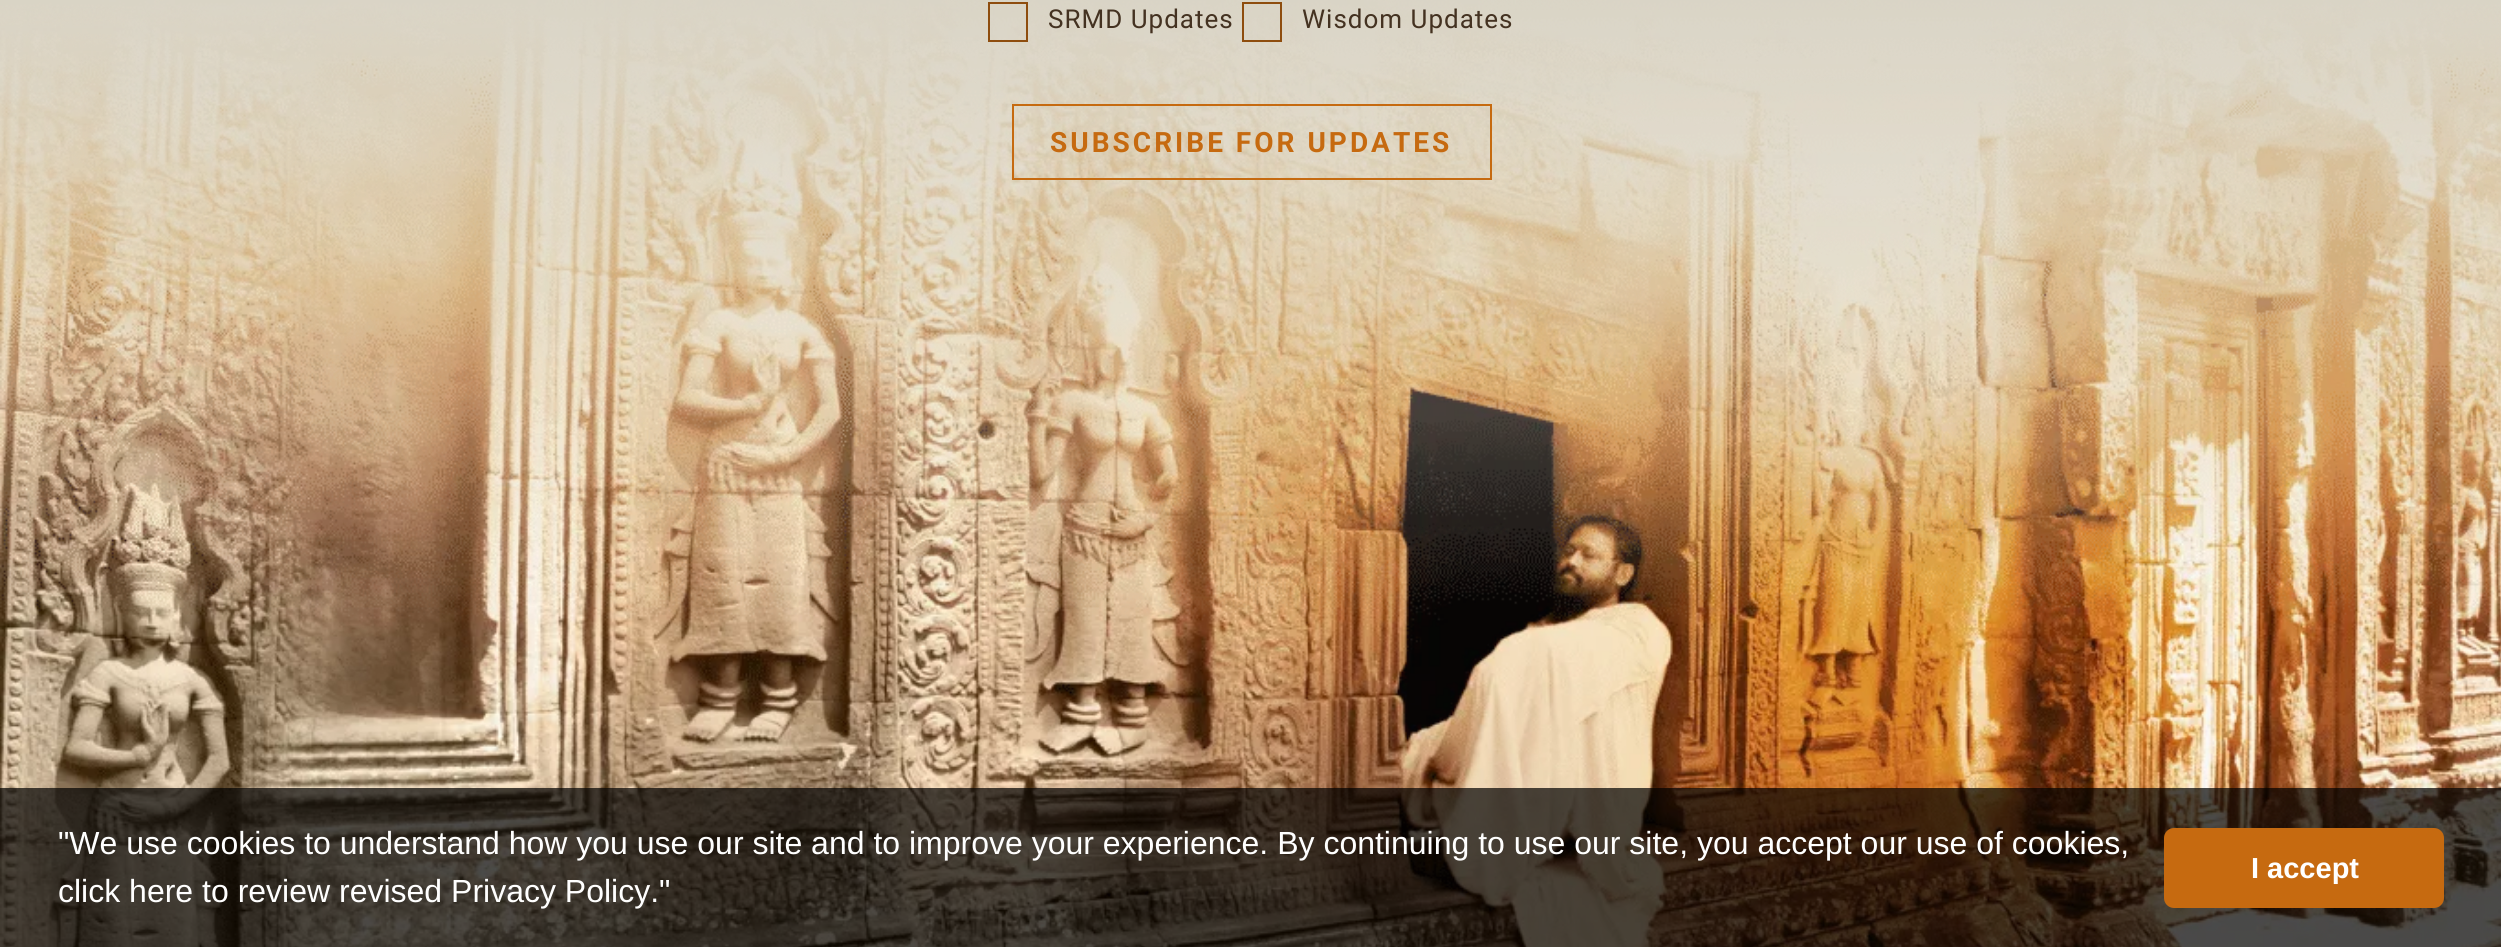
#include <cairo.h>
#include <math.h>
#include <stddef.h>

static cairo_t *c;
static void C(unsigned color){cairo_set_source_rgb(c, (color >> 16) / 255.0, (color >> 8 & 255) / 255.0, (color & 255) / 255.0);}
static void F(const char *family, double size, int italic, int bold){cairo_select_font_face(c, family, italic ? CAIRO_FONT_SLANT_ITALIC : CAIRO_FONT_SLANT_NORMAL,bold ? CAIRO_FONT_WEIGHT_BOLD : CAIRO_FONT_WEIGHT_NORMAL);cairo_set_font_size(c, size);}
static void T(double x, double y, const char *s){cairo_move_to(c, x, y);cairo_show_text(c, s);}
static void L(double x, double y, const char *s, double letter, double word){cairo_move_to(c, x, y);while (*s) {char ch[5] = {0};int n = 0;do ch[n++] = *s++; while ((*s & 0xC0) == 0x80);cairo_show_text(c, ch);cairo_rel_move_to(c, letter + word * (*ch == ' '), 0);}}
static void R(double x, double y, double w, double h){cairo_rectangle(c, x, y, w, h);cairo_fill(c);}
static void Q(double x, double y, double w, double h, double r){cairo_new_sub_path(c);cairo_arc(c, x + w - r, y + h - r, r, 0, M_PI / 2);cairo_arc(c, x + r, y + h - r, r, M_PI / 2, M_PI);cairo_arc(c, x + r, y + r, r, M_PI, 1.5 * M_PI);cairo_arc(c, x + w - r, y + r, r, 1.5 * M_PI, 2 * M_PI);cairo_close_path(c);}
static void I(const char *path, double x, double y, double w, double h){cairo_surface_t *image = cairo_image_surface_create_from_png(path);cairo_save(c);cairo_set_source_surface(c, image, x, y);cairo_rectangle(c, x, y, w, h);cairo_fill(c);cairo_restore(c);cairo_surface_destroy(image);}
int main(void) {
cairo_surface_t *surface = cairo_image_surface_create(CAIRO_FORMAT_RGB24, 2501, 947);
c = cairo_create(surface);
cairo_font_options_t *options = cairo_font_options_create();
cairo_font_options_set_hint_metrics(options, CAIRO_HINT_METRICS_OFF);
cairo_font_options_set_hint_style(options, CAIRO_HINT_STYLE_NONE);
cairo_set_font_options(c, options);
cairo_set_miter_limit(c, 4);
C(0xd6d1c2);
cairo_paint(c);
I("1.png",0,0,2501,947);
cairo_rectangle(c,989,3,38,38);
C(0x8e4d0e);
cairo_stroke(c);
F("Roboto",26,0,0);
C(0x443221);
L(1048,28,"SRMD Updates",1,0);
cairo_rectangle(c,1243,3,38,38);
C(0x8e4d0e);
cairo_stroke(c);
C(0x443221);
L(1302,28,"Wisdom Updates",1,0);
cairo_rectangle(c,1013,105,478,74);
C(0xc66a10);
cairo_stroke(c);
F("Roboto",28,0,1);
L(1050,152,"SUBSCRIBE FOR UPDATES",3,0);
cairo_set_source_rgba(c,0,0,0,0.7);
R(0,788,2501,159);
F("Liberation Sans",32,0,0);
C(0xffffff);
T(58,854,"\"We use cookies to understand how you use our site and to improve your experience. By continuing to use our site, you accept our use of cookies,");
T(58,902,"click here to review revised Privacy Policy.\"");
C(0xc66a10);
Q(2164,828,280,80,10);
cairo_fill(c);
F("Liberation Sans",29,0,1);
C(0xffffff);
T(2251,878,"I accept");
cairo_surface_write_to_png(surface, "o.png");
cairo_font_options_destroy(options);
cairo_destroy(c);
cairo_surface_destroy(surface);
return 0;
}
